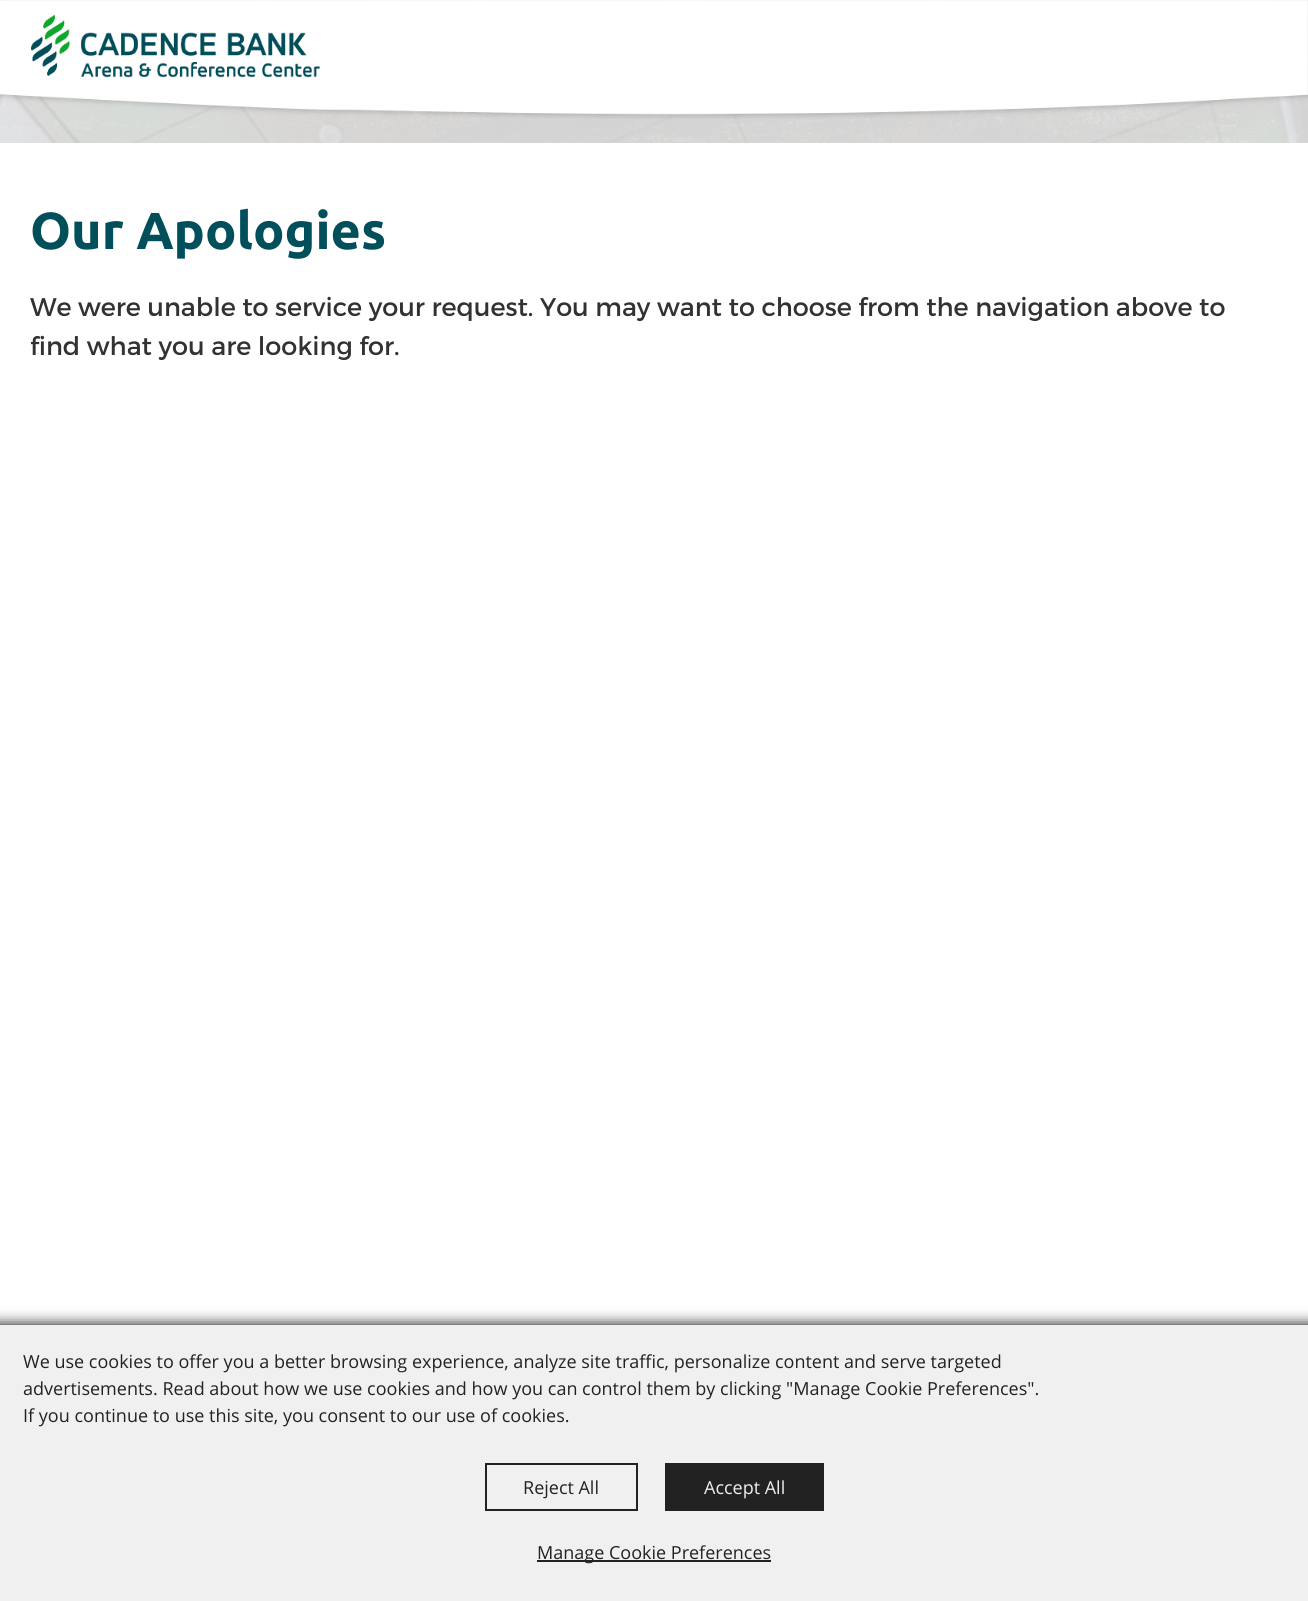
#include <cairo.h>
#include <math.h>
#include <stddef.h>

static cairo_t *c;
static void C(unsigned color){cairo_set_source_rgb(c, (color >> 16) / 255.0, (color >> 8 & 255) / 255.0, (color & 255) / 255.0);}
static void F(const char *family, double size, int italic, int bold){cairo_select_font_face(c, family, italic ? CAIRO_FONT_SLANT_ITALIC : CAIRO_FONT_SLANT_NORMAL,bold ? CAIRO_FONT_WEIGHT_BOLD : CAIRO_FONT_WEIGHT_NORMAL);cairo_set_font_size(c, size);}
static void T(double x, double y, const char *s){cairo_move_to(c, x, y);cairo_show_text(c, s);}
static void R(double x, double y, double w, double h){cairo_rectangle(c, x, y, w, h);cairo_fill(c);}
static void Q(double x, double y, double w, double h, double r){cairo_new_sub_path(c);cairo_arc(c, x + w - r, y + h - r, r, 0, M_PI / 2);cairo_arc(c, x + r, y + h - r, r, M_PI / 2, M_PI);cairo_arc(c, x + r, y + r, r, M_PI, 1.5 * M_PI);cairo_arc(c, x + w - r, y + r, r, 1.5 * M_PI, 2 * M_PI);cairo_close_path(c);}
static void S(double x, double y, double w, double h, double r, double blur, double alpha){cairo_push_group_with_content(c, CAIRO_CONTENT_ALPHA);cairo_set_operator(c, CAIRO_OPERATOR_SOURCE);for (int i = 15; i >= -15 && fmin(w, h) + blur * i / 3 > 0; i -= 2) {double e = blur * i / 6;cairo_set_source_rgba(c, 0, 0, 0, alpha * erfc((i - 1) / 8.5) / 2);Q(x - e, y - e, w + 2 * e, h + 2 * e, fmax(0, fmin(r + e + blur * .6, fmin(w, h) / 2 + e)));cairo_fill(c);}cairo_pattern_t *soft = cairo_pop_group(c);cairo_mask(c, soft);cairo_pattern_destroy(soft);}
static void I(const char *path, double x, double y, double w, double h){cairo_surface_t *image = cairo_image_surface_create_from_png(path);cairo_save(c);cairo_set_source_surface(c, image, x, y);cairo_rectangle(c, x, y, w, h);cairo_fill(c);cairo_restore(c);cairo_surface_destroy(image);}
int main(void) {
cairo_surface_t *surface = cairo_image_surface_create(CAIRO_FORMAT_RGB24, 1308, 1601);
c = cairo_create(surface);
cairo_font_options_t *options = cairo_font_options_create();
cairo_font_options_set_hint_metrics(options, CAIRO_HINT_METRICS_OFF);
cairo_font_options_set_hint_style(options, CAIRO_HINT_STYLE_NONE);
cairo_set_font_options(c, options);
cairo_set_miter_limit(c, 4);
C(0xffffff);
cairo_paint(c);
I("1.png",0,0,1308,143);
I("2.png",0,0,1308,119);
I("3.png",31,15,289,63);
F("Ubuntu",52,0,1);
C(0x004f5b);
T(30,249,"Our Apologies");
F("Montserrat",25.5,0,0);
C(0x323232);
T(30,316,"We were unable to service your request. You may want to choose from the navigation above to");
T(30,355,"find what you are looking for.");
C(0x000000);
S(-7,1325,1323,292,0,7.5,1);
C(0xf0f0f0);
R(0,1325,1308,276);
F("Open Sans",18,0,0);
C(0x222222);
T(23,1368,"We use cookies to offer you a better browsing experience, analyze site traffic, personalize content and serve targeted");
T(23,1395,"advertisements. Read about how we use cookies and how you can control them by clicking \"Manage Cookie Preferences\".");
T(23,1422,"If you continue to use this site, you consent to our use of cookies.");
cairo_rectangle(c,486,1464,151,46);
cairo_stroke(c);
T(523,1494,"Reject All");
R(665,1463,159,48);
C(0xf0f0f0);
T(704,1494,"Accept All");
C(0x222222);
R(537,1560,234,2);
T(537,1559,"Manage Cookie Preferences");
cairo_surface_write_to_png(surface, "o.png");
cairo_font_options_destroy(options);
cairo_destroy(c);
cairo_surface_destroy(surface);
return 0;
}
